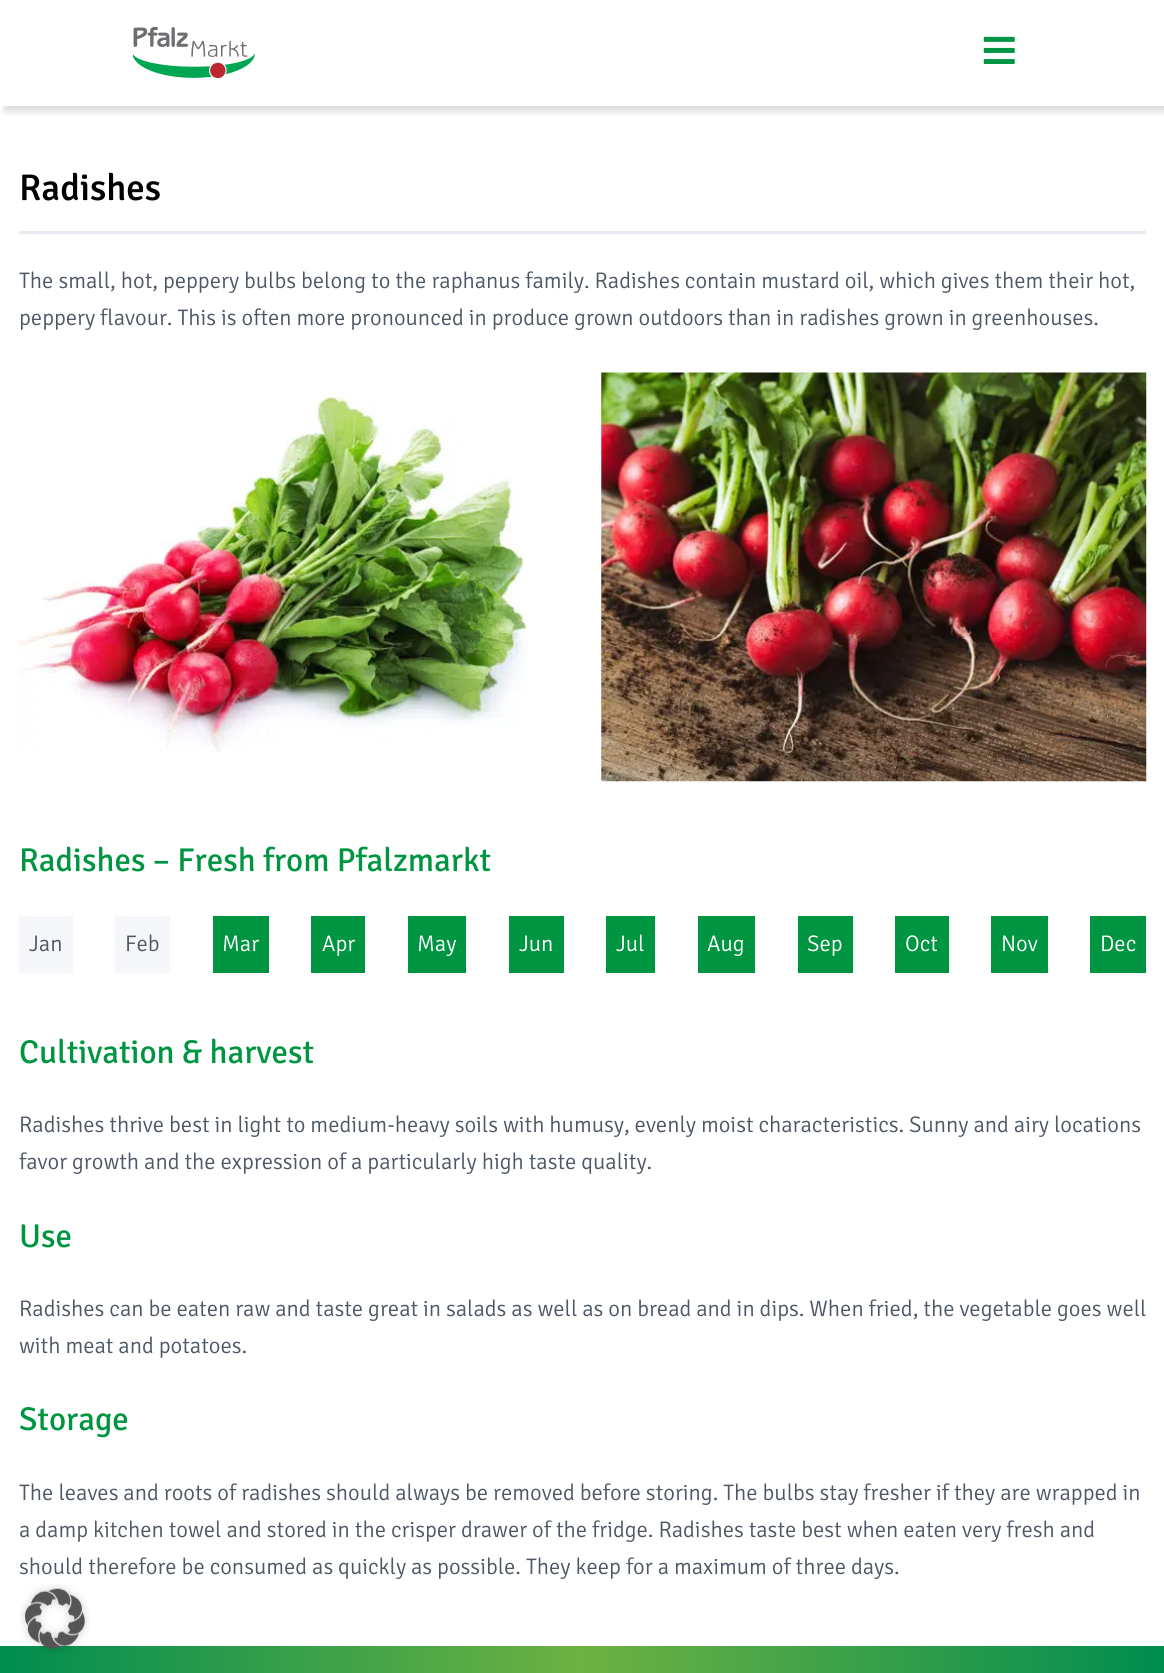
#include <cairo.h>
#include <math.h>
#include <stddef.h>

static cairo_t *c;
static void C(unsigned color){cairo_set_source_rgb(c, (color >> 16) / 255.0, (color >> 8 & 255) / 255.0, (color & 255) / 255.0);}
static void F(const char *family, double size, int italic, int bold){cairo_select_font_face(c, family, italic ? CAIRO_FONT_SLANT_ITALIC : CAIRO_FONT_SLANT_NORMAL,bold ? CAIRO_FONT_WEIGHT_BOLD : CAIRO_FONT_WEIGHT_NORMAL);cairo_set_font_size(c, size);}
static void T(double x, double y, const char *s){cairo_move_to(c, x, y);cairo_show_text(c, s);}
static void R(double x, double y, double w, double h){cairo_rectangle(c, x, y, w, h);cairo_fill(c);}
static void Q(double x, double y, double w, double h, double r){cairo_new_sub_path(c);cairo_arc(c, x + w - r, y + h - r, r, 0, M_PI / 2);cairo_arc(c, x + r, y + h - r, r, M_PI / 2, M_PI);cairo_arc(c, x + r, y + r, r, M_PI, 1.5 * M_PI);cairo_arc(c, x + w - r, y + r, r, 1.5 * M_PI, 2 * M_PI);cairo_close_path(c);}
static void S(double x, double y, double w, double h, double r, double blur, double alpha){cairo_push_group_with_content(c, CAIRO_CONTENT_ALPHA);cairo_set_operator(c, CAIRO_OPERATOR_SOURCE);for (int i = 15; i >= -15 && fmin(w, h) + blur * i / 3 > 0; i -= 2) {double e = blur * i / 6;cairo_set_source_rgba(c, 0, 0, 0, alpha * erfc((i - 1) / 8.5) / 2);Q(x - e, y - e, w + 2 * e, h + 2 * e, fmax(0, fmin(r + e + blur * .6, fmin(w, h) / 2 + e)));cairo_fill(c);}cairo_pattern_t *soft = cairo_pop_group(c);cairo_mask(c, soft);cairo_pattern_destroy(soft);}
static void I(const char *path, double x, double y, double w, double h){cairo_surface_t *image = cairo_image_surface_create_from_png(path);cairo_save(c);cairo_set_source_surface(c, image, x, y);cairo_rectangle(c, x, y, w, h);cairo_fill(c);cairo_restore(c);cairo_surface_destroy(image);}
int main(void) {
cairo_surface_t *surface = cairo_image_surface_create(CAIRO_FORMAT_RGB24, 1164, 1673);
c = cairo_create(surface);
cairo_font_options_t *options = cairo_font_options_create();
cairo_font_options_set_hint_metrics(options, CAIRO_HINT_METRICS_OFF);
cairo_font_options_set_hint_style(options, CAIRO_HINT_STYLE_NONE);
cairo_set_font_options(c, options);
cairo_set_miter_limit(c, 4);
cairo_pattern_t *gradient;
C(0xffffff);
cairo_paint(c);
cairo_save(c);
cairo_rectangle(c,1,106,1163,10);
cairo_clip(c);
C(0x000000);
S(5,5,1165,106,0,4,.16);
cairo_restore(c);
I("1.png",133,26,122,53);
I("2.png",983,36,32,28);
C(0xe6ebf2);
R(19,231,1127,3);
F("Signika Medium",37,0,0);
C(0x000000);
T(19,200,"Radishes");
F("Signika Light",22.5,0,0);
C(0x4e5766);
T(19,288,"The small, hot, peppery bulbs belong to the raphanus family. Radishes contain mustard oil, which gives them their hot,");
T(19,325,"peppery flavour. This is often more pronounced in produce grown outdoors than in radishes grown in greenhouses.");
I("3.png",19,396,510,356);
I("4.png",601,372,546,410);
F("Signika",33,0,0);
C(0x009540);
T(19,871,"Radishes – Fresh from Pfalzmarkt");
C(0xf5f7fa);
R(19,916,54,57);
F("Signika Light",22.5,0,0);
C(0x4e5766);
T(29,951,"Jan");
C(0xf5f7fa);
R(115,916,55,57);
C(0x4e5766);
T(125,951,"Feb");
C(0x009540);
R(213,916,56,57);
C(0xffffff);
T(222,951,"Mar");
C(0x009540);
R(311,916,54,57);
C(0xffffff);
T(322,951,"Apr");
C(0x009540);
R(408,916,58,57);
C(0xffffff);
T(417,951,"May");
C(0x009540);
R(509,916,55,57);
C(0xffffff);
T(519,951,"Jun");
C(0x009540);
R(606,916,49,57);
C(0xffffff);
T(616,951,"Jul");
C(0x009540);
R(698,916,57,57);
C(0xffffff);
T(707,951,"Aug");
C(0x009540);
R(798,916,55,57);
C(0xffffff);
T(807,951,"Sep");
C(0x009540);
R(895,916,54,57);
C(0xffffff);
T(905,951,"Oct");
C(0x009540);
R(991,916,57,57);
C(0xffffff);
T(1001,951,"Nov");
C(0x009540);
R(1090,916,56,57);
C(0xffffff);
T(1100,951,"Dec");
F("Signika",33,0,0);
C(0x009540);
T(19,1063,"Cultivation & harvest");
F("Signika Light",22.5,0,0);
C(0x4e5766);
T(19,1132,"Radishes thrive best in light to medium-heavy soils with humusy, evenly moist characteristics. Sunny and airy locations");
T(19,1169,"favor growth and the expression of a particularly high taste quality.");
F("Signika",33,0,0);
C(0x009540);
T(19,1247,"Use");
F("Signika Light",22.5,0,0);
C(0x4e5766);
T(19,1316,"Radishes can be eaten raw and taste great in salads as well as on bread and in dips. When fried, the vegetable goes well");
T(19,1353,"with meat and potatoes.");
F("Signika",33,0,0);
C(0x009540);
T(19,1430,"Storage");
F("Signika Light",22.5,0,0);
C(0x4e5766);
T(19,1500,"The leaves and roots of radishes should always be removed before storing. The bulbs stay fresher if they are wrapped in");
T(19,1537,"a damp kitchen towel and stored in the crisper drawer of the fridge. Radishes taste best when eaten very fresh and");
T(19,1574,"should therefore be consumed as quickly as possible. They keep for a maximum of three days.");
gradient = cairo_pattern_create_linear(0,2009,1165,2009);
cairo_pattern_add_color_stop_rgba(gradient,0,0,0.553,0.314,1);
cairo_pattern_add_color_stop_rgba(gradient,.5,0.427,0.698,0.259,1);
cairo_pattern_add_color_stop_rgba(gradient,1,0,0.553,0.314,1);
cairo_set_source(c,gradient);
cairo_pattern_destroy(gradient);
R(0,1646,1164,27);
I("5.png",20,1584,70,69);
cairo_surface_write_to_png(surface, "o.png");
cairo_font_options_destroy(options);
cairo_destroy(c);
cairo_surface_destroy(surface);
return 0;
}
